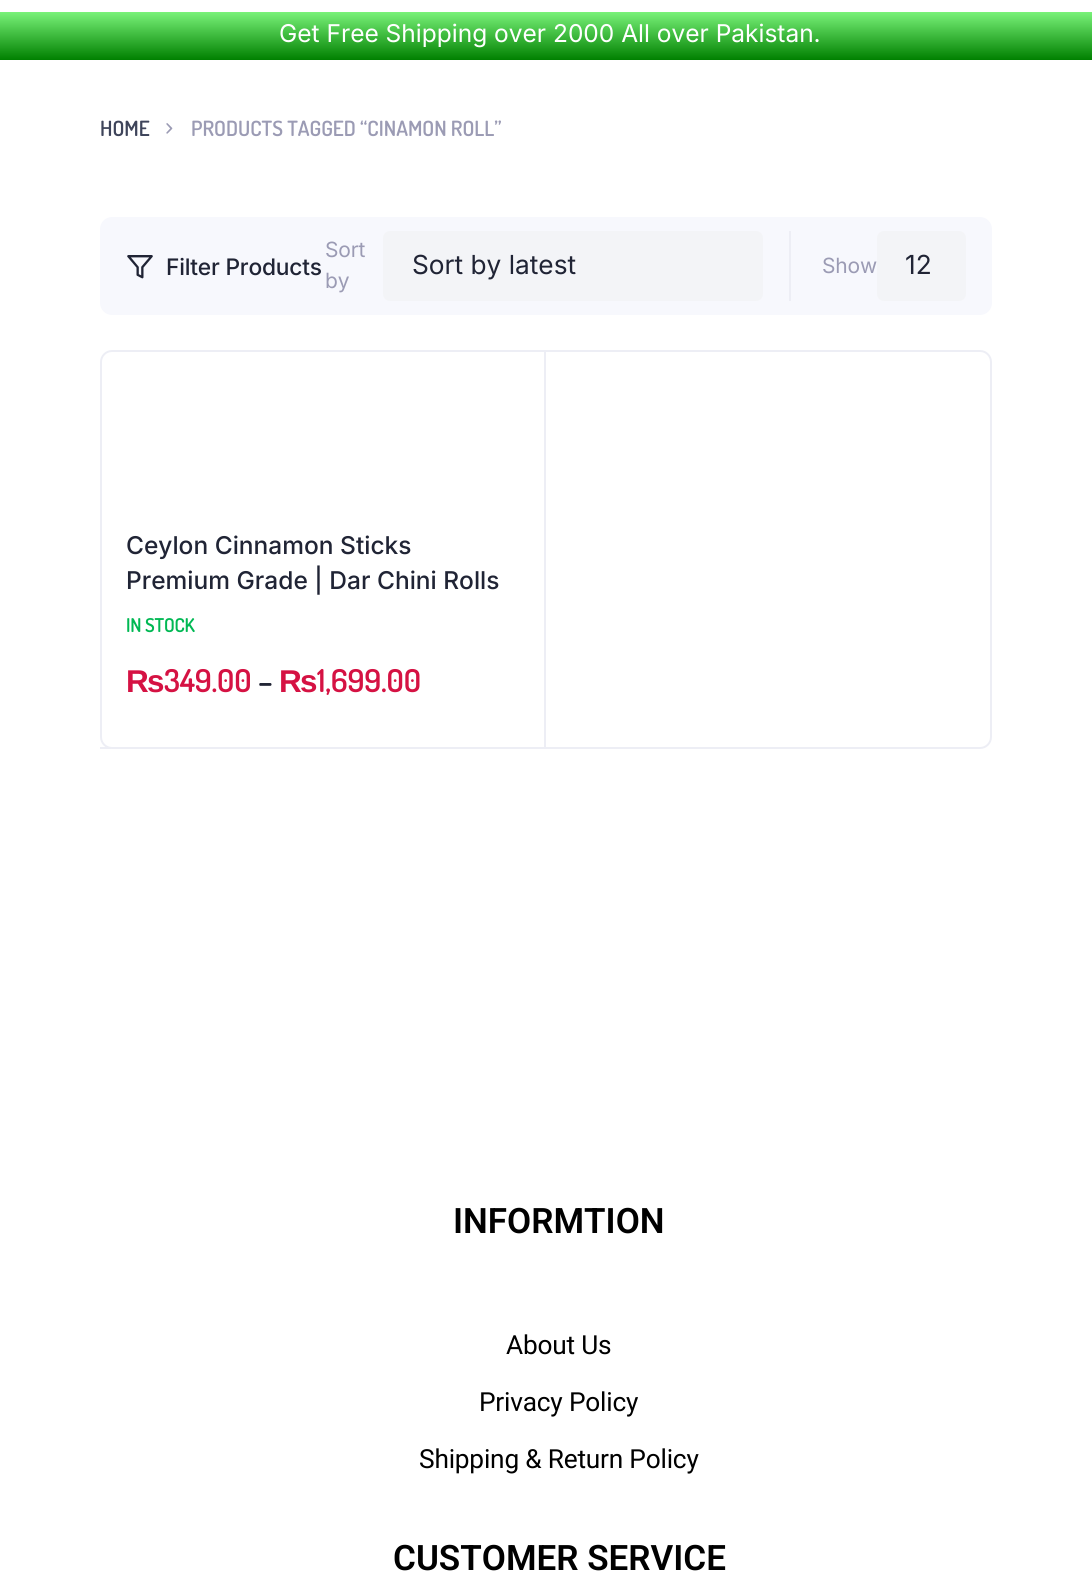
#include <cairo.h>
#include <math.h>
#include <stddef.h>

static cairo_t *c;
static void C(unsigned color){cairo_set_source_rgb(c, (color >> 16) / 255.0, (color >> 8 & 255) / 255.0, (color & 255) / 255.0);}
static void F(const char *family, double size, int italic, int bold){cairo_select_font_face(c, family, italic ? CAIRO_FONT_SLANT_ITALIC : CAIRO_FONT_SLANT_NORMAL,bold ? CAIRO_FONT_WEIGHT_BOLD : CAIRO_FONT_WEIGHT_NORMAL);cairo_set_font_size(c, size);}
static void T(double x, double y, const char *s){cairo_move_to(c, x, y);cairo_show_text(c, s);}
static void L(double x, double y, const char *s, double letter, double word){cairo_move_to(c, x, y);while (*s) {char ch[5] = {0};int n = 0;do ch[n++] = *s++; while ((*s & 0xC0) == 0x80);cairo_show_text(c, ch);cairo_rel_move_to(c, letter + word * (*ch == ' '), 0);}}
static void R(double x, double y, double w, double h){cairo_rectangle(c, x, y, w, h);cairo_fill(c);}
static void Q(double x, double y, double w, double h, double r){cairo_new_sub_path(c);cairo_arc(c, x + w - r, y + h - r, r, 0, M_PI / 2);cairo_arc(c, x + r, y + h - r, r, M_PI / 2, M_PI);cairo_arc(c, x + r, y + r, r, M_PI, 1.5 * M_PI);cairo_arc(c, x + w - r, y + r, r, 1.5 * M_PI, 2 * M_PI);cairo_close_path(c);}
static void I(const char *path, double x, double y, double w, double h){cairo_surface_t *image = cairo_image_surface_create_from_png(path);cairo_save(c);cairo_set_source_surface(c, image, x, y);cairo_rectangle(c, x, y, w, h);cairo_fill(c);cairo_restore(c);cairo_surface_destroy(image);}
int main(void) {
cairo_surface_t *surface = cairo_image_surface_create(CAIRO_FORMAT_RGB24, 1092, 1574);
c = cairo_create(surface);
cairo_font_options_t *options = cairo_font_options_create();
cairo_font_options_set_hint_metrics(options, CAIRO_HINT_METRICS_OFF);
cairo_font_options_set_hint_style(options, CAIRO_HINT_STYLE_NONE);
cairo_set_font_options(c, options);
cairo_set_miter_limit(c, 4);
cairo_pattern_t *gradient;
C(0xffffff);
cairo_paint(c);
gradient = cairo_pattern_create_linear(546,12,546,60);
cairo_pattern_add_color_stop_rgba(gradient,0,0.475,0.949,0.475,1);
cairo_pattern_add_color_stop_rgba(gradient,1,0,0.502,0,1);
cairo_set_source(c,gradient);
cairo_pattern_destroy(gradient);
R(0,12,1092,48);
F("Inter",24.5,0,0);
C(0xffffff);
T(279,42,"Get Free Shipping over 2000 All over Pakistan.");
F("Dosis SemiBold",21,0,0);
C(0x3e445a);
T(100,136,"HOME");
I("1.png",166,123,7,11);
C(0x9b9bb4);
T(191,136,"PRODUCTS TAGGED “CINAMON ROLL”");
C(0xf7f8fd);
Q(100,217,892,98,12);
cairo_fill(c);
I("2.png",127,255,26,24);
F("Inter Medium",22.75,0,0);
C(0x202435);
L(166,275,"Filter Products",-.2,0);
F("Inter",21,0,0);
C(0x9b9bb4);
L(325,257,"Sort",-.2,0);
L(325,288,"by",-.2,0);
C(0xf3f4f7);
Q(383,231,380,70,7);
cairo_fill(c);
F("Inter",26.25,0,0);
C(0x202435);
T(412,274,"Sort by latest");
C(0xedeef5);
R(789,231,2,70);
F("Inter",21,0,0);
C(0x9b9bb4);
L(822,273,"Show",-.2,0);
C(0xf3f4f7);
Q(877,231,89,70,7);
cairo_fill(c);
F("Inter",26.25,0,0);
C(0x202435);
T(905,274,"12");
Q(101,351,890,397,11);
C(0xedeef5);
cairo_stroke(c);
R(544,350,2,399);
R(100,747,11,2);
F("Inter Medium",24.5,0,0);
C(0x202435);
T(126,554,"Ceylon Cinnamon Sticks");
T(126,589,"Premium Grade | Dar Chini Rolls");
F("Dosis SemiBold",19,0,0);
C(0x00b853);
L(126,632,"IN STOCK",-.2,0);
F("Liberation Sans",31.5,0,1);
C(0xd51243);
L(126,692,"₨",-.2,0);
F("Dosis SemiBold",31.5,0,0);
L(164,692,"349.00",-.2,0);
C(0x202435);
L(258,692,"–",-.2,0);
F("Liberation Sans",31.5,0,1);
C(0xd51243);
L(279,692,"₨",-.2,0);
F("Dosis SemiBold",31.5,0,0);
L(317,692,"1,699.00",-.2,0);
F("Roboto SemiBold",35,0,0);
C(0x000000);
T(453,1233,"INFORMTION");
F("Roboto",26.25,0,0);
L(506,1354,"About Us",-.2,0);
L(479,1411,"Privacy Policy",-.2,0);
L(419,1468,"Shipping & Return Policy",-.2,0);
F("Roboto SemiBold",35,0,0);
T(393,1570,"CUSTOMER SERVICE");
cairo_surface_write_to_png(surface, "o.png");
cairo_font_options_destroy(options);
cairo_destroy(c);
cairo_surface_destroy(surface);
return 0;
}
